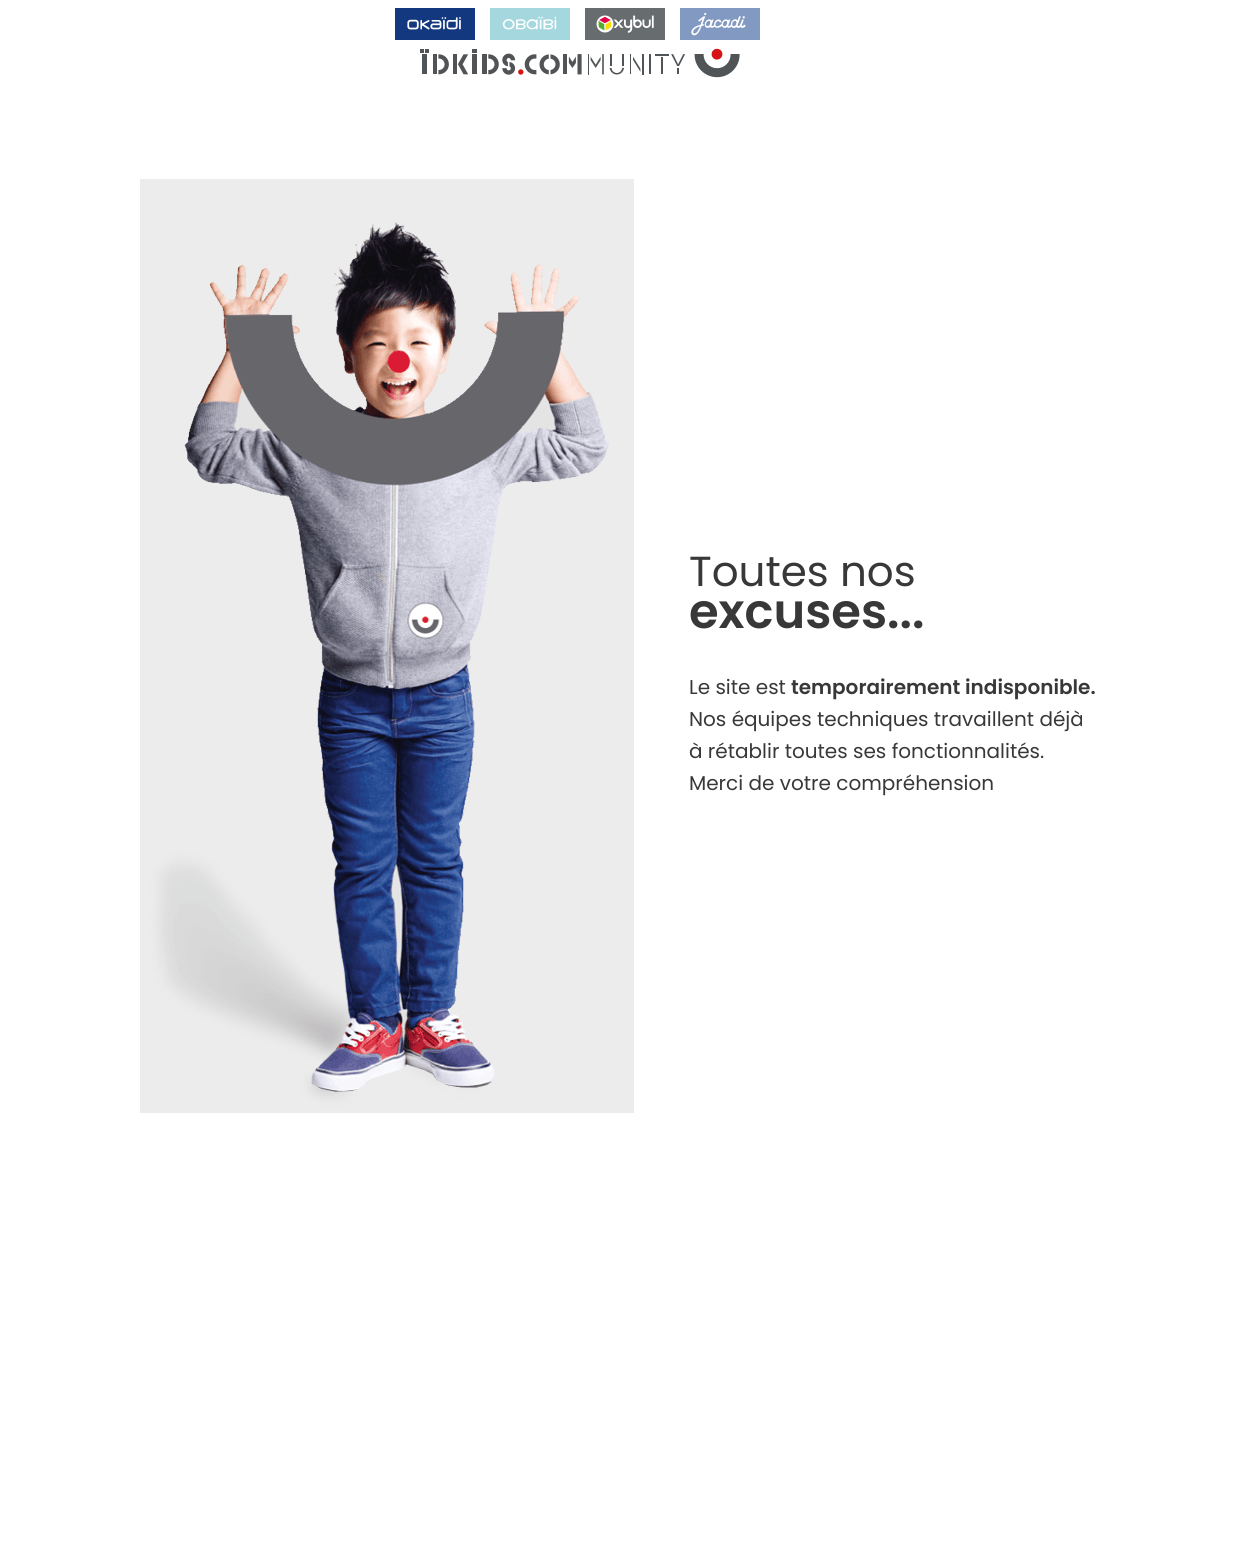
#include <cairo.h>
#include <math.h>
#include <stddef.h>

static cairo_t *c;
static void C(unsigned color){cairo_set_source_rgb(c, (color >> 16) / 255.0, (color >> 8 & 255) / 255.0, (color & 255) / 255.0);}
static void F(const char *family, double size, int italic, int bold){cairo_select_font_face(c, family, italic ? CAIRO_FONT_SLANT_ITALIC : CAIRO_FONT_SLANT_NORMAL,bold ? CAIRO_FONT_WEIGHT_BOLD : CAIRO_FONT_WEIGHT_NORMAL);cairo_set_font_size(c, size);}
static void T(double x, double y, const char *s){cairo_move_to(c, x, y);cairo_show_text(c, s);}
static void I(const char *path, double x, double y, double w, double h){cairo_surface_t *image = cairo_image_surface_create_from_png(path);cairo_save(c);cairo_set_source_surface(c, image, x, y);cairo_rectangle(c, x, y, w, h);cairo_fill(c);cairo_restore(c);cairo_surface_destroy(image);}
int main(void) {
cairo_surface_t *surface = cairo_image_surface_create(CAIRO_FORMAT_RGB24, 1237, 1567);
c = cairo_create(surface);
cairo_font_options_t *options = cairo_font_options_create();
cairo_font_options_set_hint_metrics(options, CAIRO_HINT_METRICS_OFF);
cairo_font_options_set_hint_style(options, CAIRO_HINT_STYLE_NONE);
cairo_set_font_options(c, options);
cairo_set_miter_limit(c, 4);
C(0xffffff);
cairo_paint(c);
I("1.png",395,8,365,70);
I("2.png",140,179,494,934);
F("Poppins",42,0,0);
C(0x383838);
T(689,586,"Toutes nos");
F("Poppins SemiBold",48,0,0);
T(689,628,"excuses...");
F("Poppins",20,0,0);
T(689,694,"Le site est");
F("Poppins SemiBold",20,0,0);
T(791,694,"temporairement indisponible.");
F("Poppins",20,0,0);
T(689,726,"Nos équipes techniques travaillent déjà");
T(689,758,"à rétablir toutes ses fonctionnalités.");
T(689,790,"Merci de votre compréhension");
cairo_surface_write_to_png(surface, "o.png");
cairo_font_options_destroy(options);
cairo_destroy(c);
cairo_surface_destroy(surface);
return 0;
}
